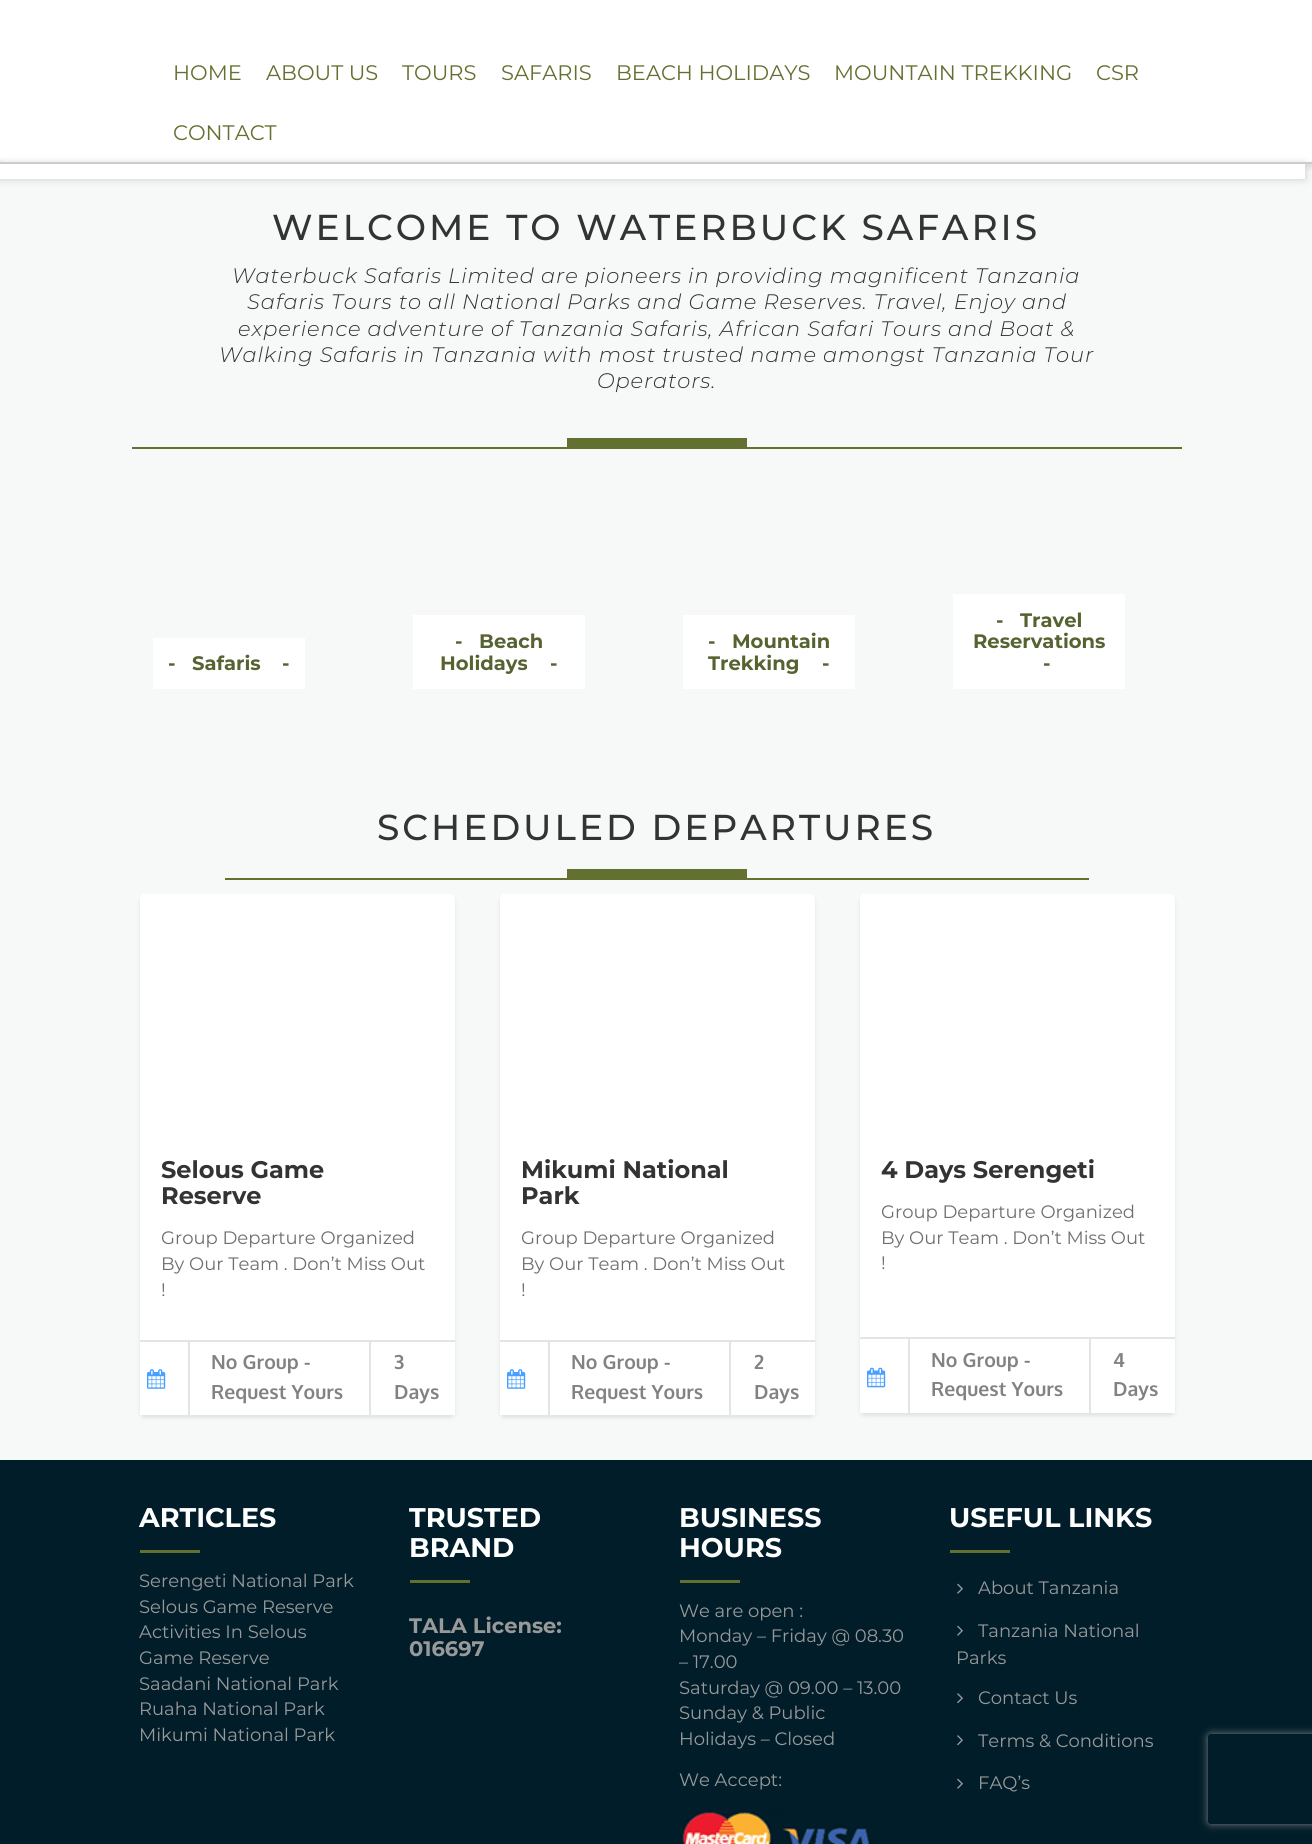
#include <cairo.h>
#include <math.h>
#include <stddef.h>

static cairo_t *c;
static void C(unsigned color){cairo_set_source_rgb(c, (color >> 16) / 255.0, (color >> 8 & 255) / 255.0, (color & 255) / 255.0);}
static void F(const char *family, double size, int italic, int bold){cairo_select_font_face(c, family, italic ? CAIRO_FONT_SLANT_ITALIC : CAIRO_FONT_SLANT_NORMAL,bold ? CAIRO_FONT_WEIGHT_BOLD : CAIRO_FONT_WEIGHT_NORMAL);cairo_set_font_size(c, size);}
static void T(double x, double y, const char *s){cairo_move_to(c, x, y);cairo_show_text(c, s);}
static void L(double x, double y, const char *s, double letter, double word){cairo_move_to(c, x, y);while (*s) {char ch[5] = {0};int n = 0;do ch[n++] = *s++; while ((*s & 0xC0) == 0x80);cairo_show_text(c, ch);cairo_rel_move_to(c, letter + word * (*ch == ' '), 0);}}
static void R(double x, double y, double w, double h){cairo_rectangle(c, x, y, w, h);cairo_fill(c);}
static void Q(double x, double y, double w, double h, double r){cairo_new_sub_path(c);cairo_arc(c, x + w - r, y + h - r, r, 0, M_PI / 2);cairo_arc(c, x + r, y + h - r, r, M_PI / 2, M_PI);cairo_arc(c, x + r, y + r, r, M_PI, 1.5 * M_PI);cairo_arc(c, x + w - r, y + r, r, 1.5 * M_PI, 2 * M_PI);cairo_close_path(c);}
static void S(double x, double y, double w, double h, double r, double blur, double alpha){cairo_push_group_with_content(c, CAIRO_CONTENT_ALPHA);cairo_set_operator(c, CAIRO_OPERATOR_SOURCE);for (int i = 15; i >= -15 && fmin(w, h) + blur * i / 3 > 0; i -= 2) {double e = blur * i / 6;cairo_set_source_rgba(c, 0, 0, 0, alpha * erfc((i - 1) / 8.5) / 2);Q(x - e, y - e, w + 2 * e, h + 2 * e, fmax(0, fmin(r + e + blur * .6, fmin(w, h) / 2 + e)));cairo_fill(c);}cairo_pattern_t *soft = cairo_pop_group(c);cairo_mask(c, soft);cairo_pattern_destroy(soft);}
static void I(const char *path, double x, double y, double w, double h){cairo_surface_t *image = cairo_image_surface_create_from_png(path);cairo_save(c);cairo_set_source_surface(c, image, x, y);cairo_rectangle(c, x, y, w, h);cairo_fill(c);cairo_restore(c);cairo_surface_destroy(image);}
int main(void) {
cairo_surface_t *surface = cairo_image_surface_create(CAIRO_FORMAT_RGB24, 1312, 1844);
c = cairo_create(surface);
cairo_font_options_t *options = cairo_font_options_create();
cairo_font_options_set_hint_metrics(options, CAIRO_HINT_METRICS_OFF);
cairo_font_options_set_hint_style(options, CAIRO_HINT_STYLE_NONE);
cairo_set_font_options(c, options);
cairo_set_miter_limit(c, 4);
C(0xf6f9f8);
cairo_paint(c);
cairo_save(c);
cairo_rectangle(c,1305,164,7,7);
cairo_clip(c);
C(0x000000);
S(0,-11,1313,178,0,3.5,.13);
cairo_restore(c);
C(0xcccccc);
R(0,162,1312,2);
C(0xffffff);
Q(0,-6,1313,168,6);
cairo_fill(c);
F("Montserrat",21,0,0);
C(0x627030);
T(173,80,"HOME");
T(266,80,"ABOUT US");
T(402,80,"TOURS");
T(501,80,"SAFARIS");
T(616,80,"BEACH HOLIDAYS");
T(834,80,"MOUNTAIN TREKKING");
T(1096,80,"CSR");
T(173,140,"CONTACT");
C(0xcccccc);
S(-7,164,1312,15,0,4,1);
C(0xffffff);
R(0,164,1305,15);
F("Montserrat Medium",36,0,0);
C(0x333333);
L(272,240,"WELCOME TO WATERBUCK SAFARIS",3,0);
F("Montserrat Light",21,1,0);
L(232,283,"Waterbuck Safaris Limited are pioneers in providing magnificent Tanzania",.85,0);
L(247,309,"Safaris Tours to all National Parks and Game Reserves. Travel, Enjoy and",.85,0);
L(238,336,"experience adventure of Tanzania Safaris, African Safari Tours and Boat &",.85,0);
L(219,362,"Walking Safaris in Tanzania with most trusted name amongst Tanzania Tour",.85,0);
L(597,388,"Operators.",.85,0);
C(0x627030);
R(132,447,1050,2);
R(567,438,180,9);
C(0xffffff);
R(153,638,152,51);
F("Montserrat",19.5,0,1);
C(0x566331);
T(168,670,"-");
T(192,670,"Safaris");
T(282,670,"-");
C(0xffffff);
R(413,615,172,74);
C(0x566331);
T(455,648,"-");
T(479,648,"Beach");
T(440,670,"Holidays");
T(550,670,"-");
C(0xffffff);
R(683,615,172,74);
C(0x566331);
T(708,648,"-");
T(732,648,"Mountain");
T(708,670,"Trekking");
T(822,670,"-");
C(0xffffff);
R(953,594,172,95);
C(0x566331);
T(996,627,"-");
T(1020,627,"Travel");
T(973,648,"Reservations");
T(1043,670,"-");
F("Montserrat Medium",36,0,0);
C(0x333333);
L(377,840,"SCHEDULED DEPARTURES",3,0);
C(0x627030);
R(225,878,864,2);
R(567,869,180,9);
C(0x000000);
S(140,897,315,521,5,2,.09);
C(0xffffff);
Q(140,894,315,521,5);
cairo_fill(c);
F("Montserrat",24,0,1);
C(0x333333);
T(161,1178,"Selous Game");
T(161,1204,"Reserve");
F("Montserrat",18,0,0);
C(0x6e6e6e);
T(161,1244,"Group Departure Organized");
T(161,1270,"By Our Team . Don’t Miss Out");
T(161,1296,"!");
C(0xffffff);
R(140,1411,315,4);
C(0xe4e4e4);
R(140,1340,315,2);
R(188,1341,2,74);
I("1.png",147,1369,19,20);
R(369,1341,2,74);
F("Oxygen",19.5,0,1);
C(0x828282);
T(211,1369,"No Group -");
T(211,1399,"Request Yours");
T(394,1369,"3");
T(394,1399,"Days");
C(0x000000);
S(500,897,315,521,5,2,.09);
C(0xffffff);
Q(500,894,315,521,5);
cairo_fill(c);
F("Montserrat",24,0,1);
C(0x333333);
T(521,1178,"Mikumi National");
T(521,1204,"Park");
F("Montserrat",18,0,0);
C(0x6e6e6e);
T(521,1244,"Group Departure Organized");
T(521,1270,"By Our Team . Don’t Miss Out");
T(521,1296,"!");
C(0xffffff);
R(500,1411,315,4);
C(0xe4e4e4);
R(500,1340,315,2);
R(548,1341,2,74);
I("1.png",507,1369,19,20);
R(729,1341,2,74);
F("Oxygen",19.5,0,1);
C(0x828282);
T(571,1369,"No Group -");
T(571,1399,"Request Yours");
T(754,1369,"2");
T(754,1399,"Days");
C(0x000000);
S(860,897,315,519,5,2,.09);
C(0xffffff);
Q(860,894,315,519,5);
cairo_fill(c);
F("Montserrat",24,0,1);
C(0x333333);
T(881,1178,"4 Days Serengeti");
F("Montserrat",18,0,0);
C(0x6e6e6e);
T(881,1218,"Group Departure Organized");
T(881,1244,"By Our Team . Don’t Miss Out");
T(881,1269,"!");
C(0xffffff);
R(860,1409,315,4);
C(0xe4e4e4);
R(860,1337,315,2);
R(908,1338,2,75);
I("2.png",867,1367,19,21);
R(1089,1338,2,75);
F("Oxygen",19.5,0,1);
C(0x828282);
T(931,1367,"No Group -");
T(931,1396,"Request Yours");
T(1113,1367,"4");
T(1113,1396,"Days");
C(0x001d29);
R(0,1460,1312,384);
F("Montserrat",27,0,1);
C(0xffffff);
T(139,1527,"ARTICLES");
C(0x627030);
R(140,1550,60,3);
F("Montserrat",18,0,0);
C(0x999999);
T(139,1587,"Serengeti National Park");
T(139,1613,"Selous Game Reserve");
T(139,1638,"Activities In Selous");
T(139,1664,"Game Reserve");
T(139,1690,"Saadani National Park");
T(139,1715,"Ruaha National Park");
T(139,1741,"Mikumi National Park");
F("Montserrat",27,0,1);
C(0xffffff);
T(409,1527,"TRUSTED");
T(409,1557,"BRAND");
C(0x627030);
R(410,1580,60,3);
F("Montserrat",21,0,1);
C(0x999999);
T(409,1633,"TALA License:");
T(409,1656,"016697");
F("Montserrat",27,0,1);
C(0xffffff);
T(679,1527,"BUSINESS");
T(679,1557,"HOURS");
C(0x627030);
R(680,1580,60,3);
F("Montserrat",18,0,0);
C(0x999999);
T(679,1617,"We are open :");
T(679,1642,"Monday – Friday @ 08.30");
T(679,1668,"– 17.00");
T(679,1694,"Saturday @ 09.00 – 13.00");
T(679,1719,"Sunday & Public");
T(679,1745,"Holidays – Closed");
T(679,1786,"We Accept:");
I("3.png",681,1811,190,33);
F("Montserrat",27,0,1);
C(0xffffff);
T(949,1527,"USEFUL LINKS");
C(0x627030);
R(950,1550,60,3);
I("4.png",957,1583,6,11);
F("Montserrat",18,0,0);
C(0x999999);
T(978,1594,"About Tanzania");
I("4.png",957,1625,6,11);
T(978,1637,"Tanzania National");
T(956,1664,"Parks");
I("5.png",957,1693,6,11);
T(978,1704,"Contact Us");
I("5.png",957,1735,6,11);
T(978,1747,"Terms & Conditions");
I("4.png",957,1778,6,11);
T(978,1789,"FAQ’s");
cairo_save(c);
cairo_set_fill_rule(c,CAIRO_FILL_RULE_EVEN_ODD);
cairo_new_path(c);
cairo_move_to(c,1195,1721);
cairo_line_to(c,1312,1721);
cairo_line_to(c,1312,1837);
cairo_line_to(c,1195,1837);
cairo_close_path(c);
cairo_move_to(c,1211,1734);
cairo_line_to(c,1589,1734);
cairo_curve_to(c,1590.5,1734,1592,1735.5,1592,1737);
cairo_line_to(c,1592,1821);
cairo_curve_to(c,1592,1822.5,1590.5,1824,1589,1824);
cairo_line_to(c,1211,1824);
cairo_curve_to(c,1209.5,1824,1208,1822.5,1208,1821);
cairo_line_to(c,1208,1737);
cairo_curve_to(c,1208,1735.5,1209.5,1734,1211,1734);
cairo_close_path(c);
cairo_clip(c);
C(0x808080);
S(1208,1734,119,90,3,4,1);
cairo_restore(c);
cairo_surface_write_to_png(surface, "o.png");
cairo_font_options_destroy(options);
cairo_destroy(c);
cairo_surface_destroy(surface);
return 0;
}
